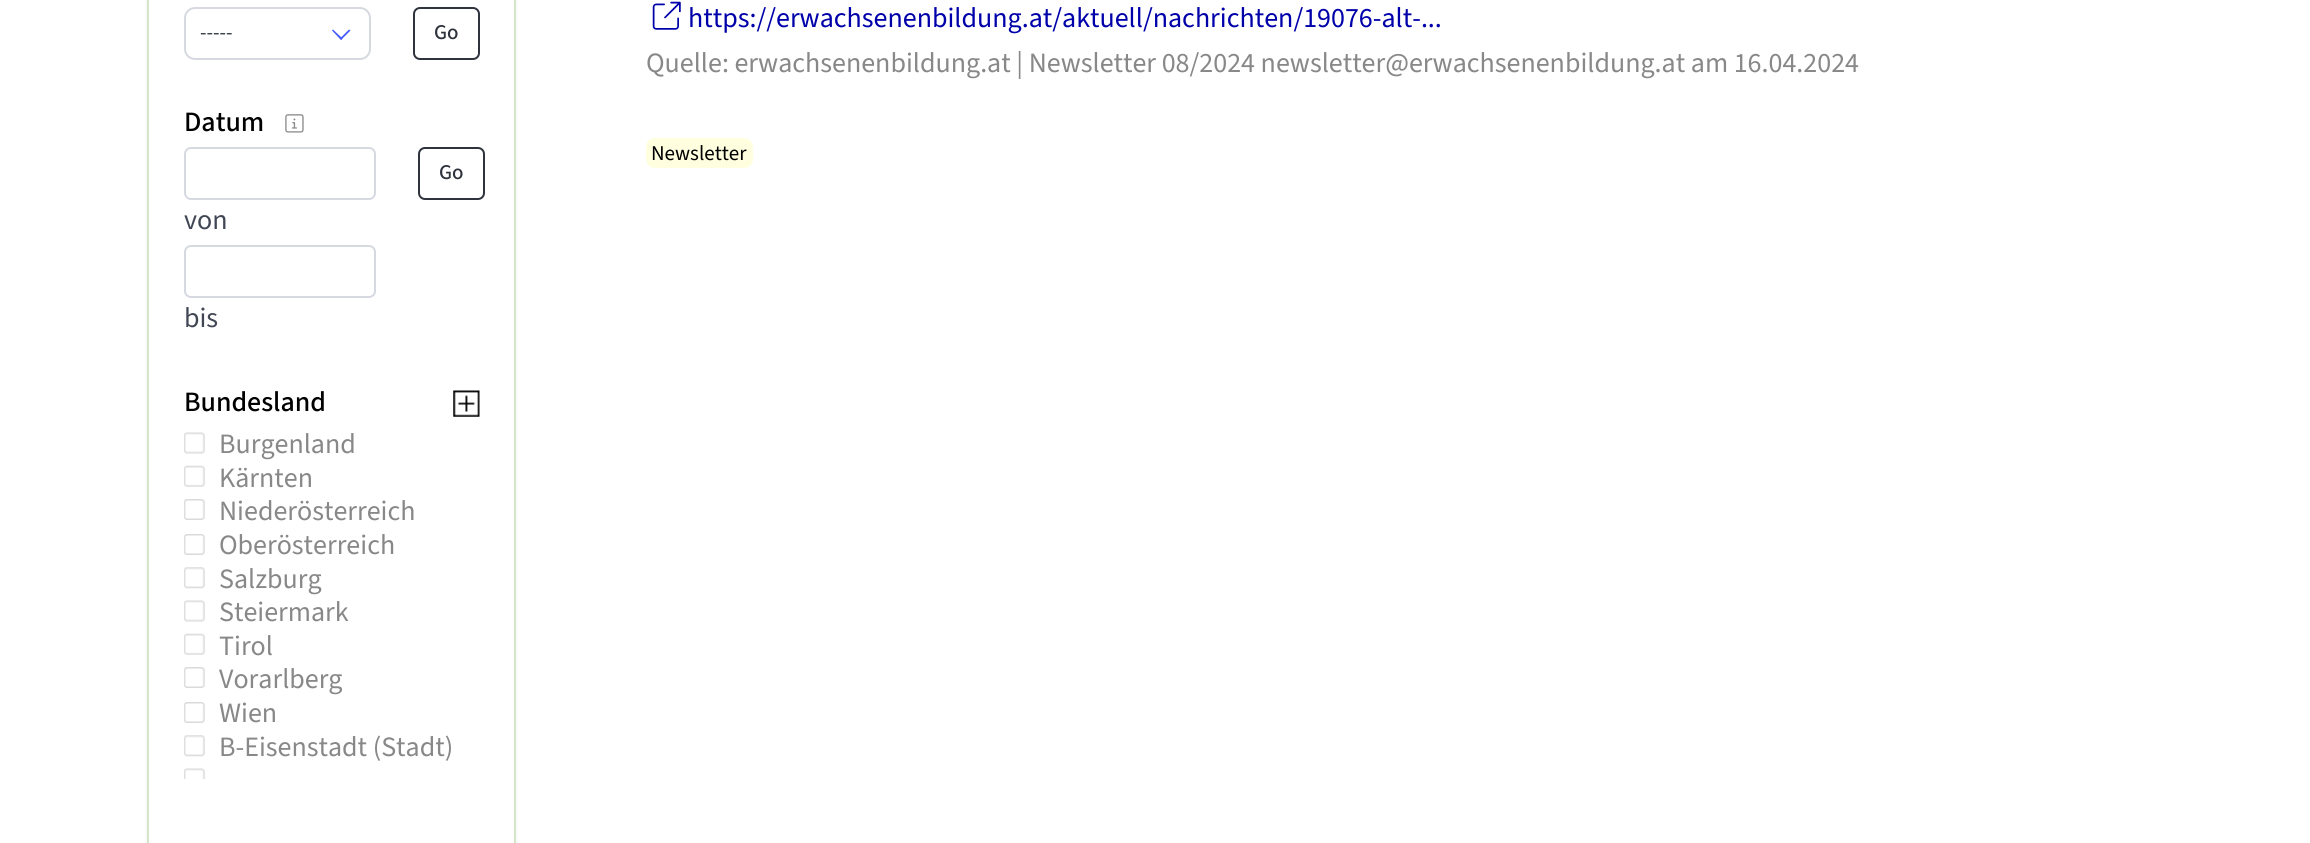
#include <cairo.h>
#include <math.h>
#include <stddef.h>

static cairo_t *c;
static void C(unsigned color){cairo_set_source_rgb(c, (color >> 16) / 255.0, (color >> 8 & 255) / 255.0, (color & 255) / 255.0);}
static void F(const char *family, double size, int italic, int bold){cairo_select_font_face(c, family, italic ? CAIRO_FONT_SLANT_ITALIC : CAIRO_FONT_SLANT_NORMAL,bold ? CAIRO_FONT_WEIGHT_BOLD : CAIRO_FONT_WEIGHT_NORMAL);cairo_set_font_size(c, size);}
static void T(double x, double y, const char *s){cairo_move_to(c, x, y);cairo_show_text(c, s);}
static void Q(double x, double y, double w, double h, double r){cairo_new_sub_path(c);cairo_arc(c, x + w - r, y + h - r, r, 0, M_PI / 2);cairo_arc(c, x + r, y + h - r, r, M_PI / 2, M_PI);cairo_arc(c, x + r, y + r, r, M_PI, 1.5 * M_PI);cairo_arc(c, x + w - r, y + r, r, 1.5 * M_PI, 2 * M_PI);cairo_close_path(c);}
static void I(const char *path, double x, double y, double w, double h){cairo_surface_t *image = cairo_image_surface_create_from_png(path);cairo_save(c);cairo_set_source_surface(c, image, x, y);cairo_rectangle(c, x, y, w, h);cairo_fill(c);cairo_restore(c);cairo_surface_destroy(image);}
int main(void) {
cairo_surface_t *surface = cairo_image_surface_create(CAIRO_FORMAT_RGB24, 2310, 843);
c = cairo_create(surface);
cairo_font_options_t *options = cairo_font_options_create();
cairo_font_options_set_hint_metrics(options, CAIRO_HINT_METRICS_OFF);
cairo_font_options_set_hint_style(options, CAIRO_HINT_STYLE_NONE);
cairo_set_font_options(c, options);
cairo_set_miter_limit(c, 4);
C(0xffffff);
cairo_paint(c);
cairo_rectangle(c,146,-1,371,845);
C(0xfafafa);
cairo_stroke(c);
cairo_rectangle(c,148,-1,367,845);
C(0xd4e6c9);
cairo_stroke(c);
Q(185,8,185,51,10);
C(0xd6d9e0);
cairo_stroke(c);
F("Source Sans 3",21,0,0);
C(0x2e333d);
T(200,39,"-----");
C(0x4258ff);
cairo_new_path(c);
cairo_move_to(c,340,38.5);
cairo_line_to(c,349,29.5);
cairo_line_to(c,350.5,30.5);
cairo_line_to(c,341,40);
cairo_close_path(c);
cairo_fill(c);
cairo_new_path(c);
cairo_move_to(c,332,30.5);
cairo_line_to(c,333,29.5);
cairo_line_to(c,342.5,38.5);
cairo_line_to(c,341,40);
cairo_close_path(c);
cairo_fill(c);
Q(414,8,65,51,6);
C(0x2e333d);
cairo_stroke(c);
F("Source Sans 3 Medium",21,0,0);
T(434,39,"Go");
F("Source Sans 3 Medium",28,0,0);
C(0x000000);
T(184,131,"Datum");
I("1.png",285,114,19,19);
Q(419,148,65,51,6);
C(0x2e333d);
cairo_stroke(c);
F("Source Sans 3 Medium",21,0,0);
T(439,179,"Go");
Q(185,148,190,51,6);
C(0xd6d9e0);
cairo_stroke(c);
F("Source Sans 3",28,0,0);
C(0x404654);
T(184,229,"von");
Q(185,246,190,51,6);
C(0xd6d9e0);
cairo_stroke(c);
C(0x404654);
T(184,327,"bis");
F("Source Sans 3 Medium",28,0,0);
C(0x000000);
T(184,411,"Bundesland");
I("2.png",453,390,27,27);
I("3.png",184,432,21,22);
F("Source Sans 3",28,0,0);
C(0x888888);
T(219,453,"Burgenland");
I("4.png",184,465,21,22);
T(219,487,"Kärnten");
I("5.png",184,499,21,21);
T(219,520,"Niederösterreich");
I("5.png",184,534,21,21);
T(219,554,"Oberösterreich");
I("6.png",184,567,21,22);
T(219,588,"Salzburg");
I("3.png",184,600,21,22);
T(219,621,"Steiermark");
I("4.png",184,633,21,22);
T(219,655,"Tirol");
I("5.png",184,667,21,21);
T(219,688,"Vorarlberg");
I("5.png",184,702,21,21);
T(219,722,"Wien");
I("6.png",184,735,21,22);
T(219,756,"B-Eisenstadt (Stadt)");
I("7.png",184,768,21,11);
I("8.png",652,1,29,29);
C(0x0000aa);
T(688,27,"https://erwachsenenbildung.at/aktuell/nachrichten/19076-alt-...");
C(0x888888);
T(646,72,"Quelle: erwachsenenbildung.at | Newsletter 08/2024 newsletter@erwachsenenbildung.at am 16.04.2024");
C(0xffffe0);
Q(646,138,107,30,9);
cairo_fill(c);
F("Source Sans 3",21,0,0);
C(0x000000);
T(651,160,"Newsletter");
cairo_surface_write_to_png(surface, "o.png");
cairo_font_options_destroy(options);
cairo_destroy(c);
cairo_surface_destroy(surface);
return 0;
}
